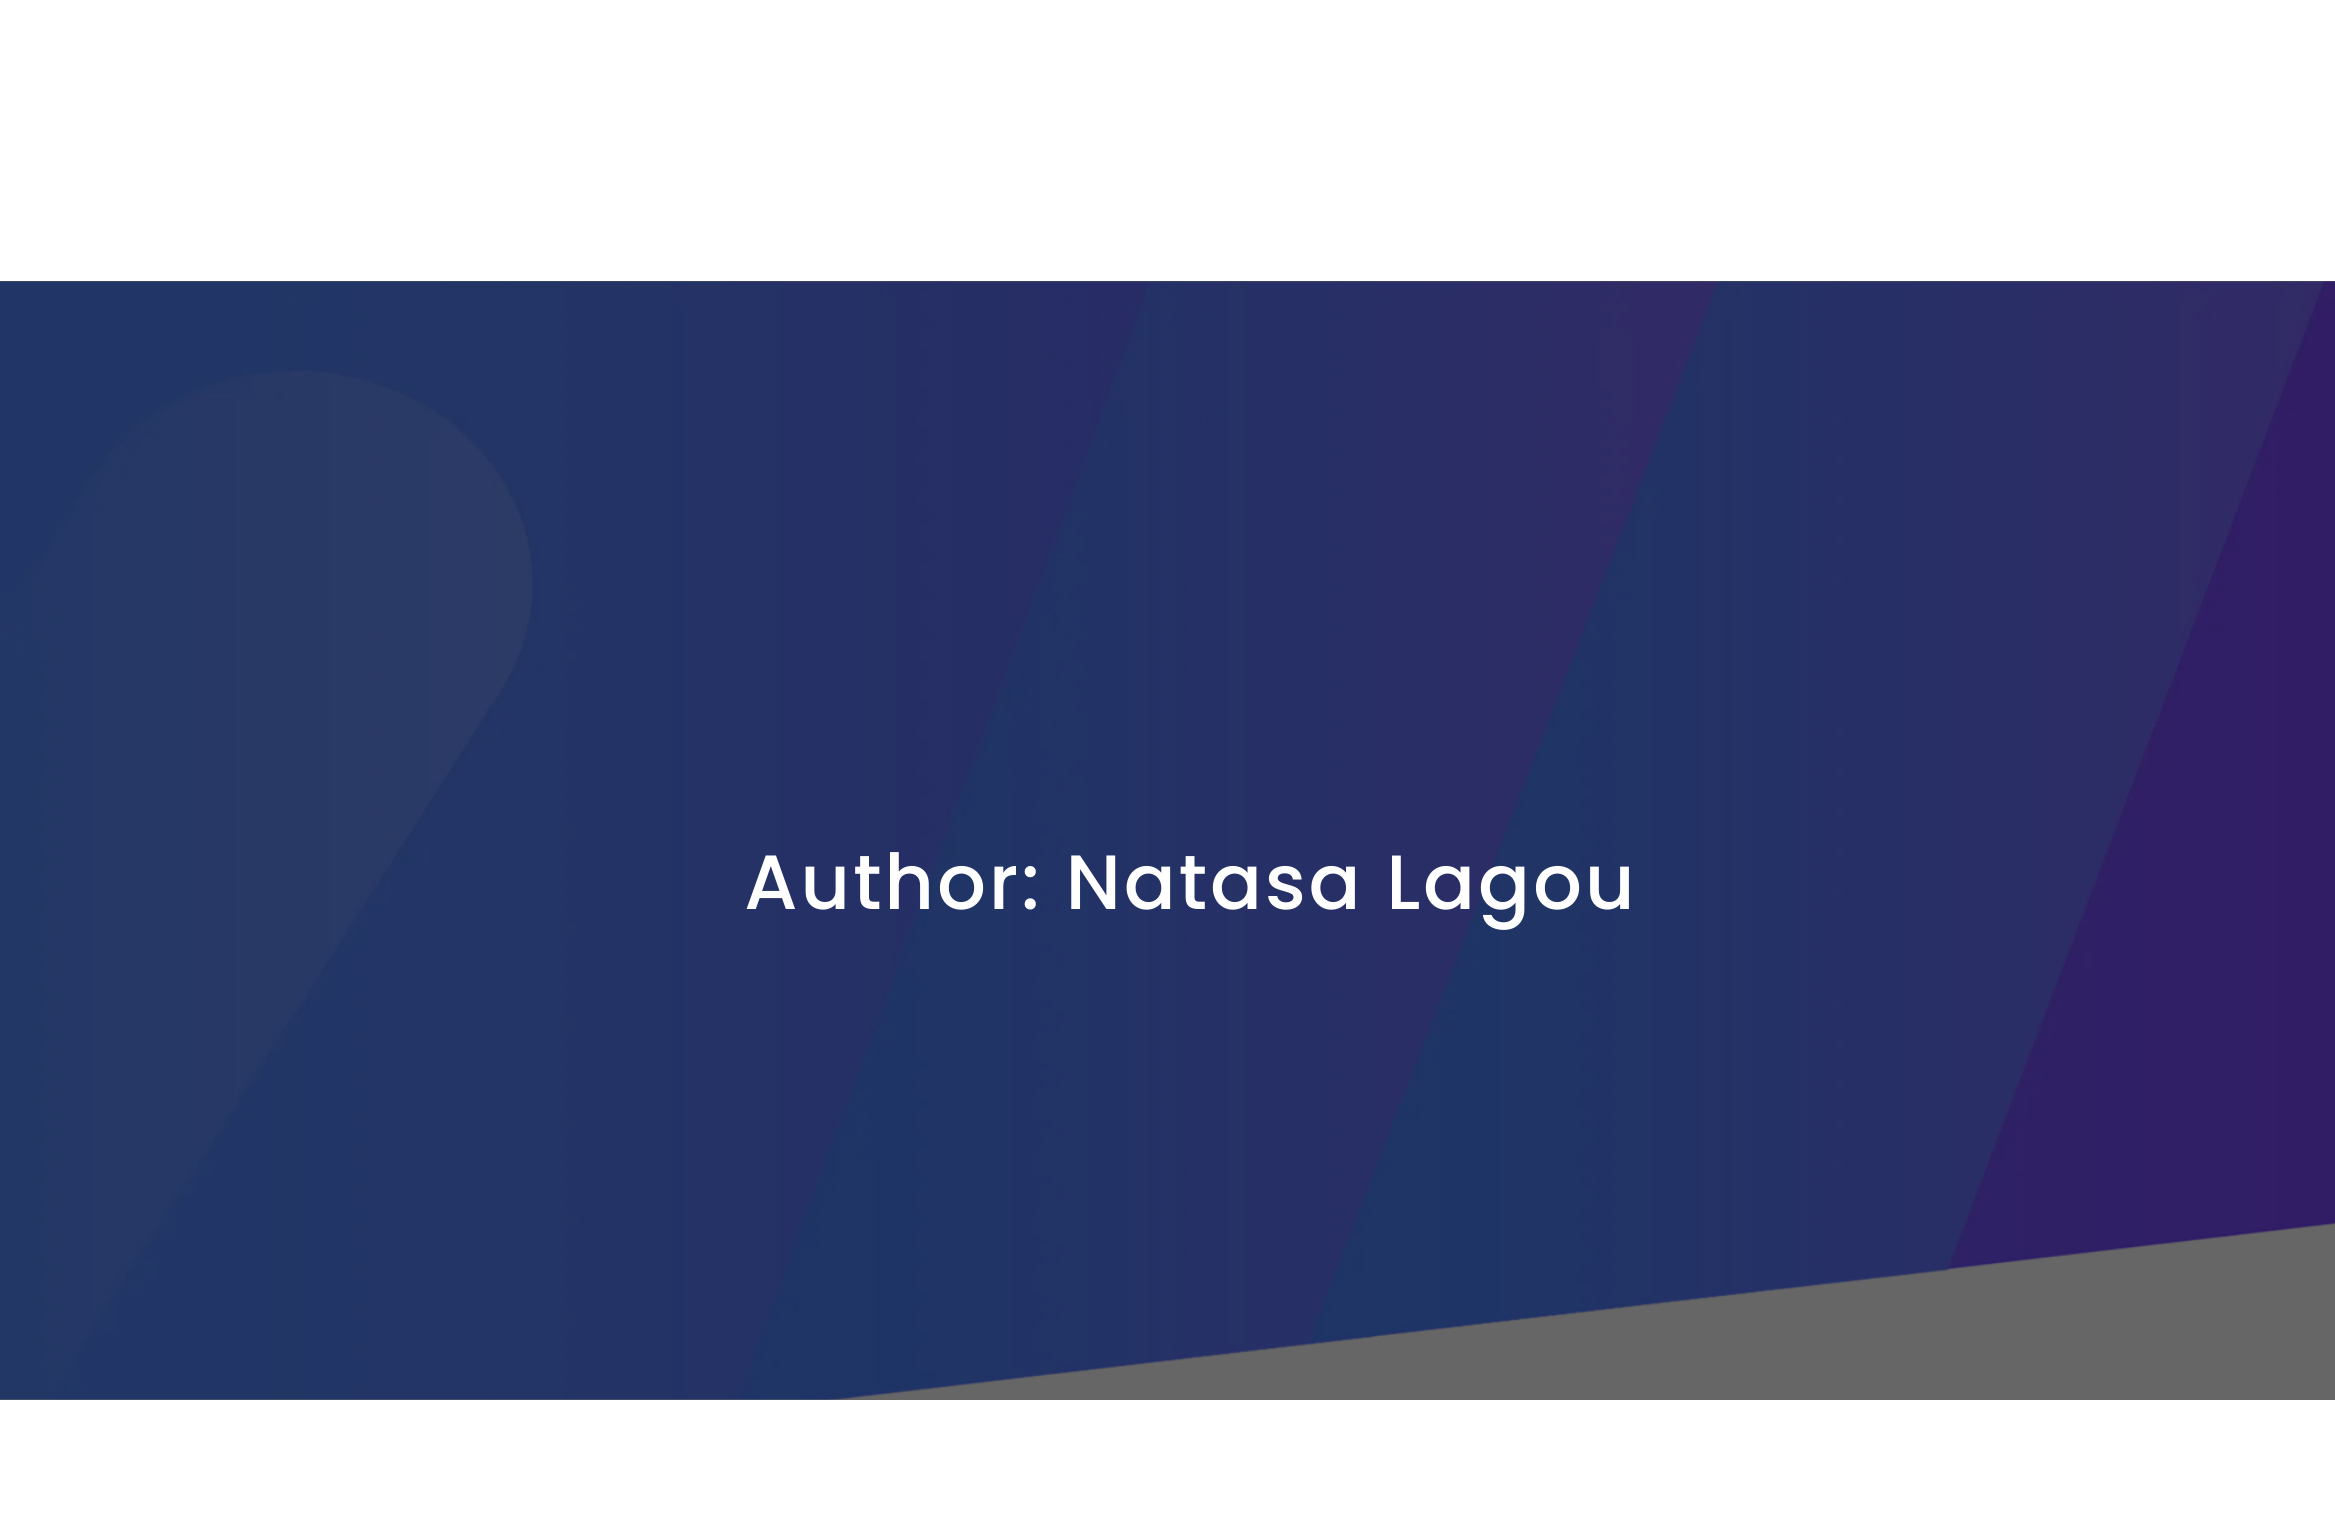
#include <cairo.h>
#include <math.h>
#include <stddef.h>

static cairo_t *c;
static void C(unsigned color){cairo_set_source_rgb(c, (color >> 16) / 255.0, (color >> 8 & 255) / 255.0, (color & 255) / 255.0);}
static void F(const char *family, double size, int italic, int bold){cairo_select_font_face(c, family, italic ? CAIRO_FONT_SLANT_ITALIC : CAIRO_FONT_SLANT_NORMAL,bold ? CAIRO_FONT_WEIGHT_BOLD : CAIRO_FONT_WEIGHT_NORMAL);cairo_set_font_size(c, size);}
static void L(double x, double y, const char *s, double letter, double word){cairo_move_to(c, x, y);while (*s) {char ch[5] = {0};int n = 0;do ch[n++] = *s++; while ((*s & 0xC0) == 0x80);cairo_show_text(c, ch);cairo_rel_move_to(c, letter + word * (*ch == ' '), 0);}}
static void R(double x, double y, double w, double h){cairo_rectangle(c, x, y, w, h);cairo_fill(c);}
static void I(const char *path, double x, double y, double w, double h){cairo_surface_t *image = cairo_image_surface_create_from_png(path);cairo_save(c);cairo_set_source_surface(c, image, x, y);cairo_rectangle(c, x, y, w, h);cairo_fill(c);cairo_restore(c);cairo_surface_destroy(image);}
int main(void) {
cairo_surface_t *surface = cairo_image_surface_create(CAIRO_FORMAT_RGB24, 2335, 1520);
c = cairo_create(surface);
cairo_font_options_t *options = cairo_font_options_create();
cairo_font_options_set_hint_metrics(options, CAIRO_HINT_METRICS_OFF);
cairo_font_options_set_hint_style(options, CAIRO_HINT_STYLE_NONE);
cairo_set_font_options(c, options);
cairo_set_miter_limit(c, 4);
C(0xffffff);
cairo_paint(c);
C(0x666666);
R(0,281,2335,1119);
I("1.png",0,281,2335,1119);
F("Poppins Medium",76.9,0,0);
C(0xffffff);
L(744,909,"Author: Natasa Lagou",2.75,0);
cairo_surface_write_to_png(surface, "o.png");
cairo_font_options_destroy(options);
cairo_destroy(c);
cairo_surface_destroy(surface);
return 0;
}
